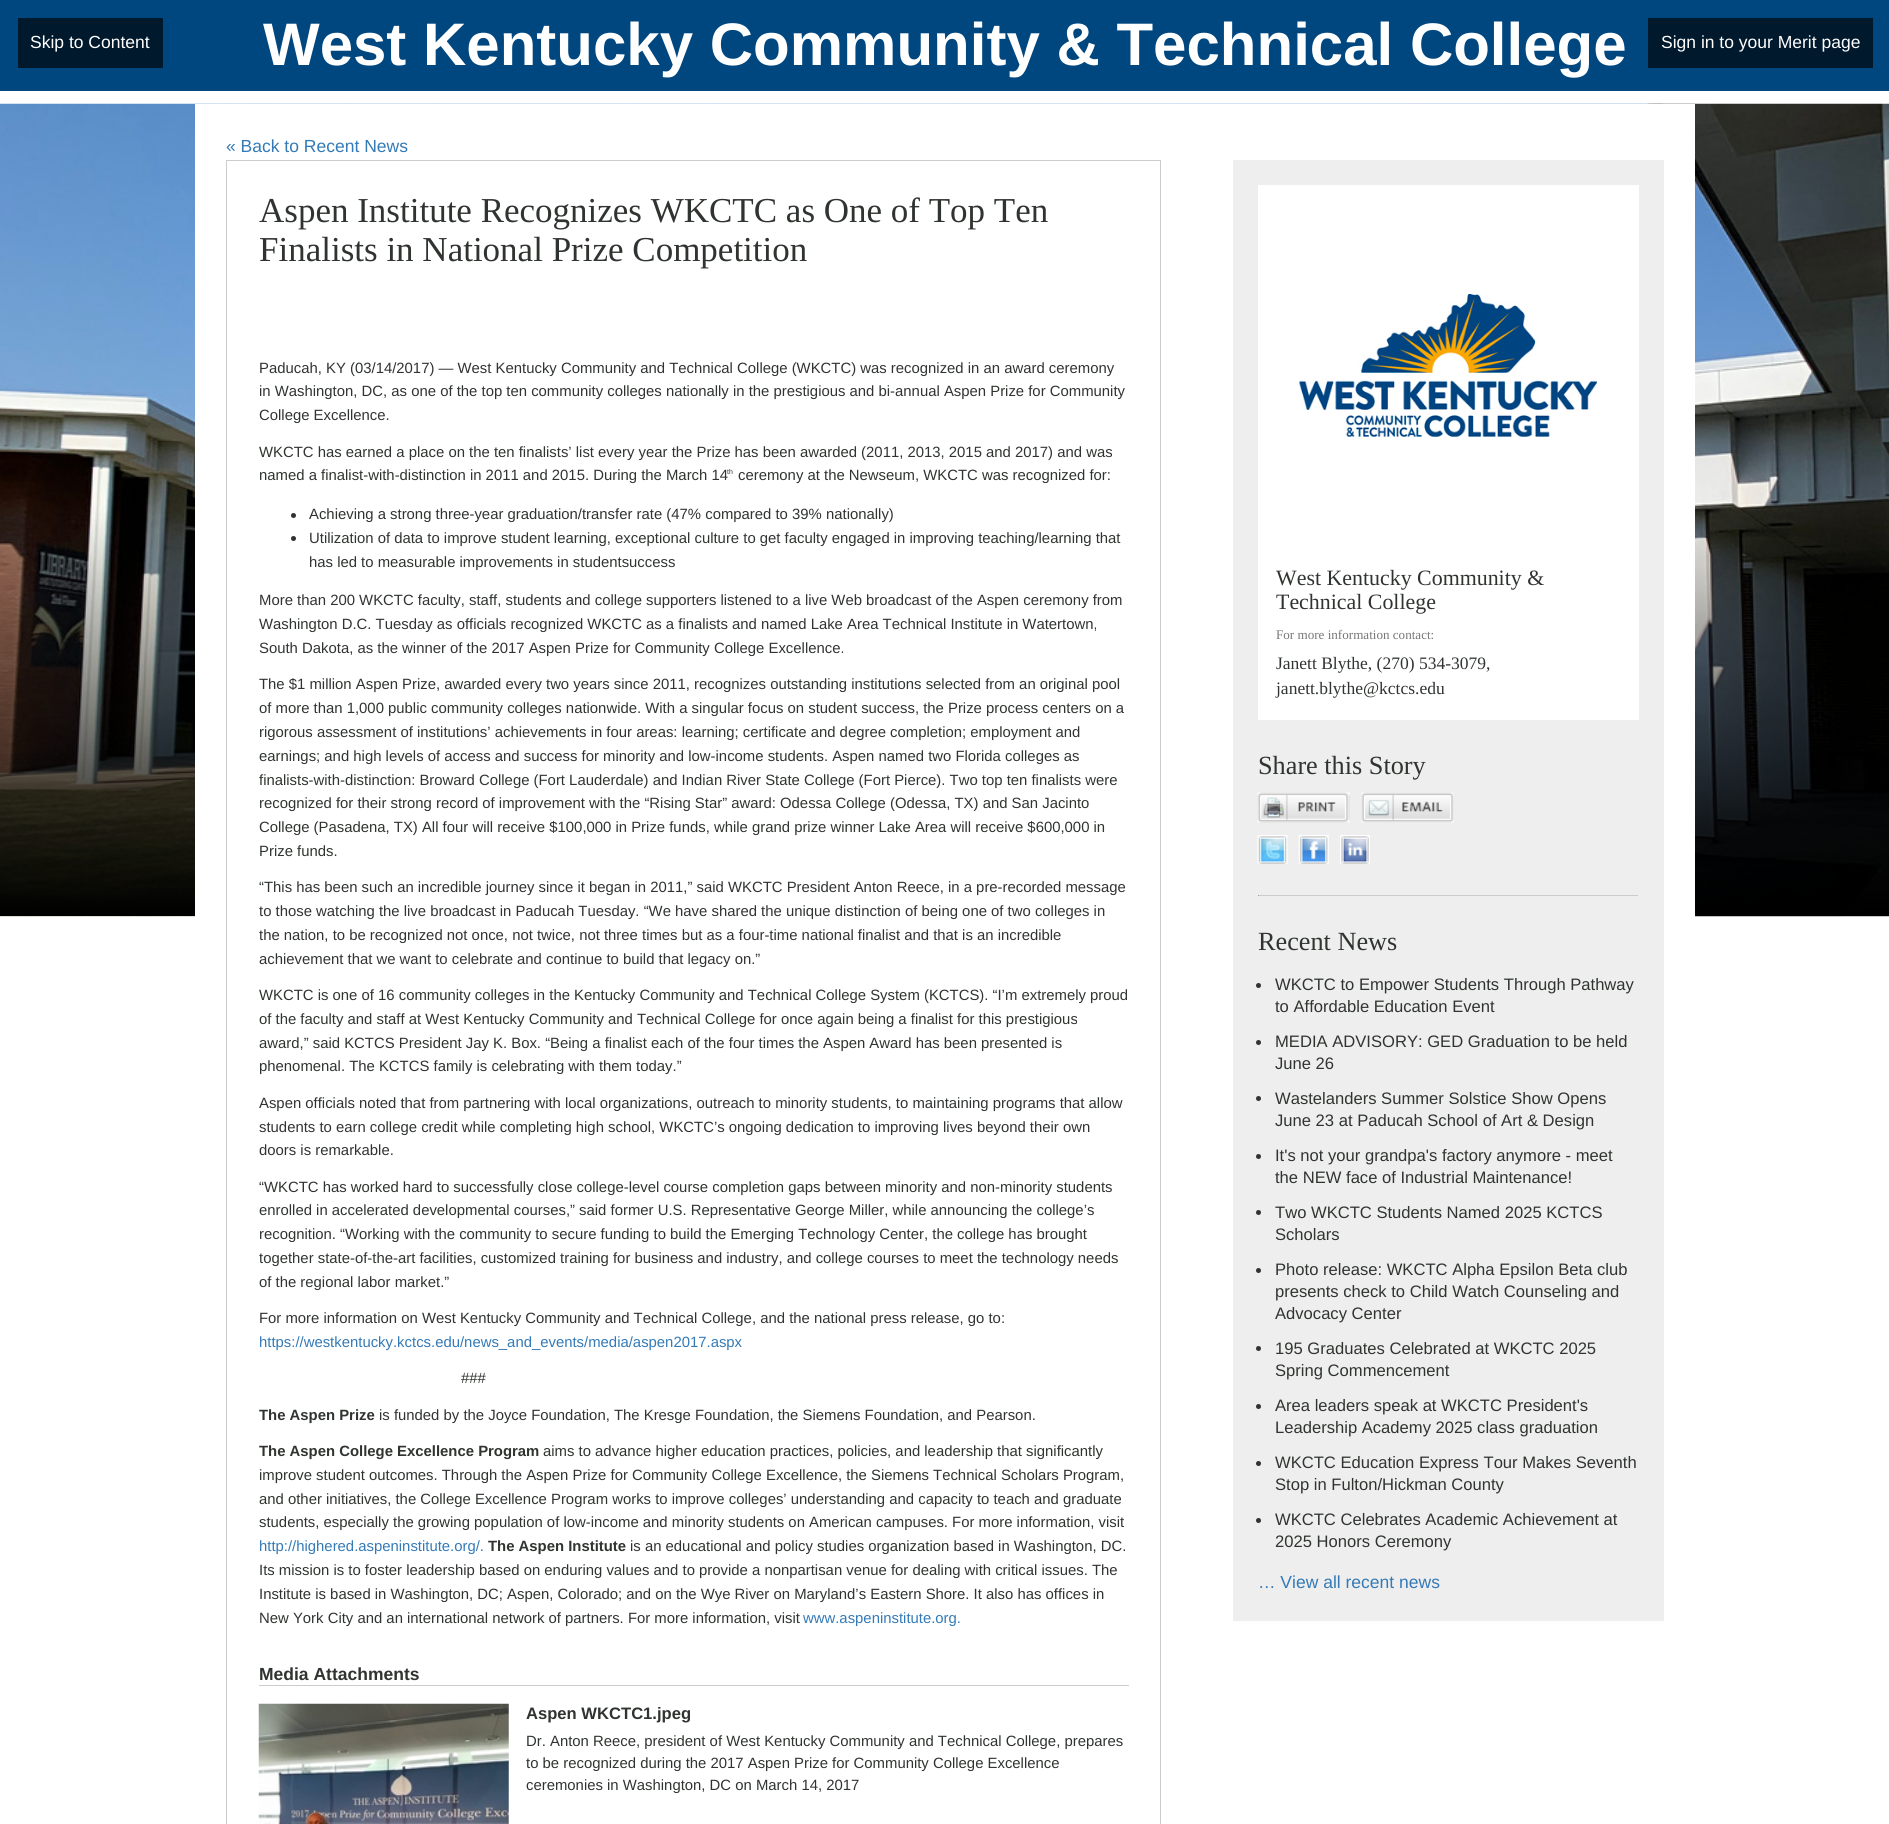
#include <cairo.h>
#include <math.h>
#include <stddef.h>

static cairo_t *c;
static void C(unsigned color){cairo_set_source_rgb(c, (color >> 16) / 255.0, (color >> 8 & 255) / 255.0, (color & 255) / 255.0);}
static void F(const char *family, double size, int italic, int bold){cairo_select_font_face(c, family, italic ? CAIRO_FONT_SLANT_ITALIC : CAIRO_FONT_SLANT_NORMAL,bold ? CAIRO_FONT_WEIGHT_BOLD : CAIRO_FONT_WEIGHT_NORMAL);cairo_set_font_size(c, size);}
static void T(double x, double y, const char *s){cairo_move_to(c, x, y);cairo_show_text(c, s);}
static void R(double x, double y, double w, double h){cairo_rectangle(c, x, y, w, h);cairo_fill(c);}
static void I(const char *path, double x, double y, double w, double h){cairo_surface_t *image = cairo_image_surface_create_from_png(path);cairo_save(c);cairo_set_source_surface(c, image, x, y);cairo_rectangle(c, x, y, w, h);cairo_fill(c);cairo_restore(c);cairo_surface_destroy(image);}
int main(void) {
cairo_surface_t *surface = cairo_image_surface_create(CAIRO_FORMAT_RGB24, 1889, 1824);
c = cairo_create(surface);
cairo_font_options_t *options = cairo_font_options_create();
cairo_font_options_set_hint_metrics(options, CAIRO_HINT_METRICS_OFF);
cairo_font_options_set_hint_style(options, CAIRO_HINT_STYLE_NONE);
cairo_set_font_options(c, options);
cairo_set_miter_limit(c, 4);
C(0xffffff);
cairo_paint(c);
C(0x00467f);
R(0,0,1889,91);
C(0x00192c);
R(18,18,145,50);
F("Liberation Sans",17.5,0,0);
C(0xffffff);
T(30,48,"Skip to Content");
F("Liberation Sans",60,0,1);
T(263,65,"West Kentucky Community & Technical College");
C(0x00192c);
R(1648,18,225,50);
F("Liberation Sans",17.5,0,0);
C(0xffffff);
T(1661,48,"Sign in to your Merit page");
I("1.png",0,103,1889,814);
R(195,104,1500,813);
C(0x337ab7);
T(226,152,"« Back to Recent News");
cairo_rectangle(c,226.5,160.5,934,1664);
C(0xcccccc);
cairo_set_line_width(c,1);
cairo_stroke(c);
F("Liberation Serif",35,0,0);
C(0x303430);
T(259,222,"Aspen Institute Recognizes WKCTC as One of Top Ten");
T(259,261,"Finalists in National Prize Competition");
F("Liberation Sans",14.88,0,0);
T(259,373,"Paducah, KY (03/14/2017) — West Kentucky Community and Technical College (WKCTC) was recognized in an award ceremony");
T(259,396,"in Washington, DC, as one of the top ten community colleges nationally in the prestigious and bi-annual Aspen Prize for Community");
T(259,420,"College Excellence.");
T(259,457,"WKCTC has earned a place on the ten finalists’ list every year the Prize has been awarded (2011, 2013, 2015 and 2017) and was");
T(259,480,"named a finalist-with-distinction in 2011 and 2015. During the March 14");
F("Liberation Sans",7,0,0);
T(727,474,"th");
F("Liberation Sans",14.88,0,0);
T(738,480,"ceremony at the Newseum, WKCTC was recognized for:");
cairo_new_path(c);
cairo_arc(c,293.5,515.5,2.5,0,2 * M_PI);
cairo_fill(c);
T(309,519,"Achieving a strong three-year graduation/transfer rate (47% compared to 39% nationally)");
cairo_new_path(c);
cairo_arc(c,293.5,538.5,2.5,0,2 * M_PI);
cairo_fill(c);
T(309,543,"Utilization of data to improve student learning, exceptional culture to get faculty engaged in improving teaching/learning that");
T(309,567,"has led to measurable improvements in studentsuccess");
T(259,605,"More than 200 WKCTC faculty, staff, students and college supporters listened to a live Web broadcast of the Aspen ceremony from");
T(259,629,"Washington D.C. Tuesday as officials recognized WKCTC as a finalists and named Lake Area Technical Institute in Watertown,");
T(259,653,"South Dakota, as the winner of the 2017 Aspen Prize for Community College Excellence.");
T(259,689,"The $1 million Aspen Prize, awarded every two years since 2011, recognizes outstanding institutions selected from an original pool");
T(259,713,"of more than 1,000 public community colleges nationwide. With a singular focus on student success, the Prize process centers on a");
T(259,737,"rigorous assessment of institutions’ achievements in four areas: learning; certificate and degree completion; employment and");
T(259,761,"earnings; and high levels of access and success for minority and low-income students. Aspen named two Florida colleges as");
T(259,785,"finalists-with-distinction: Broward College (Fort Lauderdale) and Indian River State College (Fort Pierce). Two top ten finalists were");
T(259,808,"recognized for their strong record of improvement with the “Rising Star” award: Odessa College (Odessa, TX) and San Jacinto");
T(259,832,"College (Pasadena, TX) All four will receive $100,000 in Prize funds, while grand prize winner Lake Area will receive $600,000 in");
T(259,856,"Prize funds.");
T(259,892,"“This has been such an incredible journey since it began in 2011,” said WKCTC President Anton Reece, in a pre-recorded message");
T(259,916,"to those watching the live broadcast in Paducah Tuesday. “We have shared the unique distinction of being one of two colleges in");
T(259,940,"the nation, to be recognized not once, not twice, not three times but as a four-time national finalist and that is an incredible");
T(259,964,"achievement that we want to celebrate and continue to build that legacy on.”");
T(259,1000,"WKCTC is one of 16 community colleges in the Kentucky Community and Technical College System (KCTCS). “I’m extremely proud");
T(259,1024,"of the faculty and staff at West Kentucky Community and Technical College for once again being a finalist for this prestigious");
T(259,1048,"award,” said KCTCS President Jay K. Box. “Being a finalist each of the four times the Aspen Award has been presented is");
T(259,1071,"phenomenal. The KCTCS family is celebrating with them today.”");
T(259,1108,"Aspen officials noted that from partnering with local organizations, outreach to minority students, to maintaining programs that allow");
T(259,1132,"students to earn college credit while completing high school, WKCTC’s ongoing dedication to improving lives beyond their own");
T(259,1155,"doors is remarkable.");
T(259,1192,"“WKCTC has worked hard to successfully close college-level course completion gaps between minority and non-minority students");
T(259,1215,"enrolled in accelerated developmental courses,” said former U.S. Representative George Miller, while announcing the college’s");
T(259,1239,"recognition. “Working with the community to secure funding to build the Emerging Technology Center, the college has brought");
T(259,1263,"together state-of-the-art facilities, customized training for business and industry, and college courses to meet the technology needs");
T(259,1287,"of the regional labor market.”");
T(259,1323,"For more information on West Kentucky Community and Technical College, and the national press release, go to:");
C(0x337ab7);
T(259,1347,"https://westkentucky.kctcs.edu/news_and_events/media/aspen2017.aspx");
C(0x303430);
T(461,1383,"###");
F("Liberation Sans",14.88,0,1);
T(259,1420,"The Aspen Prize");
F("Liberation Sans",14.88,0,0);
T(379,1420,"is funded by the Joyce Foundation, The Kresge Foundation, the Siemens Foundation, and Pearson.");
F("Liberation Sans",14.88,0,1);
T(259,1456,"The Aspen College Excellence Program");
F("Liberation Sans",14.88,0,0);
T(543,1456,"aims to advance higher education practices, policies, and leadership that significantly");
T(259,1480,"improve student outcomes. Through the Aspen Prize for Community College Excellence, the Siemens Technical Scholars Program,");
T(259,1504,"and other initiatives, the College Excellence Program works to improve colleges’ understanding and capacity to teach and graduate");
T(259,1527,"students, especially the growing population of low-income and minority students on American campuses. For more information, visit");
C(0x337ab7);
T(259,1551,"http://highered.aspeninstitute.org/.");
F("Liberation Sans",14.88,0,1);
C(0x303430);
T(488,1551,"The Aspen Institute");
F("Liberation Sans",14.88,0,0);
T(630,1551,"is an educational and policy studies organization based in Washington, DC.");
T(259,1575,"Its mission is to foster leadership based on enduring values and to provide a nonpartisan venue for dealing with critical issues. The");
T(259,1599,"Institute is based in Washington, DC; Aspen, Colorado; and on the Wye River on Maryland’s Eastern Shore. It also has offices in");
T(259,1623,"New York City and an international network of partners. For more information, visit");
C(0x337ab7);
T(803,1623,"www.aspeninstitute.org.");
C(0xcccccc);
R(259,1685,870,1);
F("Liberation Sans",17.5,0,1);
C(0x303430);
T(259,1680,"Media Attachments");
I("2.png",258,1703,251,121);
F("Liberation Sans",16.6,0,1);
T(526,1719,"Aspen WKCTC1.jpeg");
F("Liberation Sans",14.88,0,0);
T(526,1746,"Dr. Anton Reece, president of West Kentucky Community and Technical College, prepares");
T(526,1768,"to be recognized during the 2017 Aspen Prize for Community College Excellence");
T(526,1790,"ceremonies in Washington, DC on March 14, 2017");
C(0xeeeeee);
R(1233,160,431,1461);
C(0xffffff);
R(1258,185,381,535);
I("3.png",1299,294,298,143);
F("Liberation Serif",21.9,0,0);
C(0x303430);
T(1276,585,"West Kentucky Community &");
T(1276,609,"Technical College");
F("Liberation Serif",13.1,0,0);
C(0x777777);
T(1276,639,"For more information contact:");
F("Liberation Serif",17.5,0,0);
C(0x303430);
T(1276,669,"Janett Blythe, (270) 534-3079,");
T(1276,694,"janett.blythe@kctcs.edu");
F("Liberation Serif",26.25,0,0);
T(1258,774,"Share this Story");
I("4.png",1257,792,93,31);
I("5.png",1361,792,93,31);
I("6.png",1257,835,31,29);
I("7.png",1298,835,31,29);
I("8.png",1340,835,30,29);
C(0xcccccc);
R(1258,895,381,1);
C(0xeeeeee);
R(1638,895,1,1);
C(0x9f9f9f);
R(1258,895,1,1);
C(0x303430);
T(1258,950,"Recent News");
cairo_new_path(c);
cairo_arc(c,1258.5,985.5,2.5,0,2 * M_PI);
cairo_fill(c);
F("Liberation Sans",16.6,0,0);
T(1275,990,"WKCTC to Empower Students Through Pathway");
T(1275,1012,"to Affordable Education Event");
cairo_new_path(c);
cairo_arc(c,1258.5,1042.5,2.5,0,2 * M_PI);
cairo_fill(c);
T(1275,1047,"MEDIA ADVISORY: GED Graduation to be held");
T(1275,1069,"June 26");
cairo_new_path(c);
cairo_arc(c,1258.5,1098.5,2.5,0,2 * M_PI);
cairo_fill(c);
T(1275,1104,"Wastelanders Summer Solstice Show Opens");
T(1275,1126,"June 23 at Paducah School of Art & Design");
cairo_new_path(c);
cairo_arc(c,1258.5,1156.5,2.5,0,2 * M_PI);
cairo_fill(c);
T(1275,1161,"It's not your grandpa's factory anymore - meet");
T(1275,1183,"the NEW face of Industrial Maintenance!");
cairo_new_path(c);
cairo_arc(c,1258.5,1212.5,2.5,0,2 * M_PI);
cairo_fill(c);
T(1275,1218,"Two WKCTC Students Named 2025 KCTCS");
T(1275,1240,"Scholars");
cairo_new_path(c);
cairo_arc(c,1258.5,1270.5,2.5,0,2 * M_PI);
cairo_fill(c);
T(1275,1275,"Photo release: WKCTC Alpha Epsilon Beta club");
T(1275,1297,"presents check to Child Watch Counseling and");
T(1275,1319,"Advocacy Center");
cairo_new_path(c);
cairo_arc(c,1258.5,1348.5,2.5,0,2 * M_PI);
cairo_fill(c);
T(1275,1354,"195 Graduates Celebrated at WKCTC 2025");
T(1275,1376,"Spring Commencement");
cairo_new_path(c);
cairo_arc(c,1258.5,1406.5,2.5,0,2 * M_PI);
cairo_fill(c);
T(1275,1411,"Area leaders speak at WKCTC President's");
T(1275,1433,"Leadership Academy 2025 class graduation");
cairo_new_path(c);
cairo_arc(c,1258.5,1463.5,2.5,0,2 * M_PI);
cairo_fill(c);
T(1275,1468,"WKCTC Education Express Tour Makes Seventh");
T(1275,1490,"Stop in Fulton/Hickman County");
cairo_new_path(c);
cairo_arc(c,1258.5,1520.5,2.5,0,2 * M_PI);
cairo_fill(c);
T(1275,1525,"WKCTC Celebrates Academic Achievement at");
T(1275,1547,"2025 Honors Ceremony");
F("Liberation Sans",17.5,0,0);
C(0x337ab7);
T(1258,1588,"… View all recent news");
cairo_surface_write_to_png(surface, "o.png");
cairo_font_options_destroy(options);
cairo_destroy(c);
cairo_surface_destroy(surface);
return 0;
}
